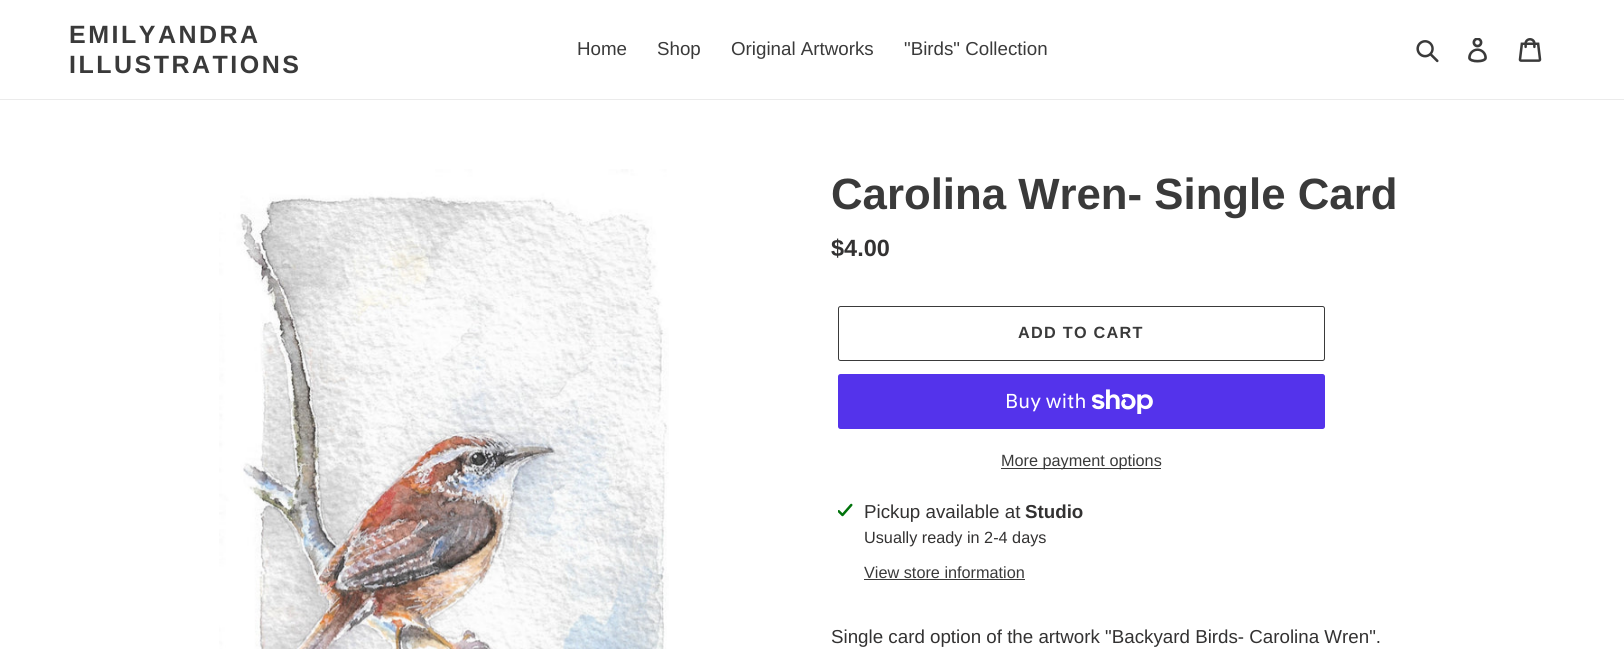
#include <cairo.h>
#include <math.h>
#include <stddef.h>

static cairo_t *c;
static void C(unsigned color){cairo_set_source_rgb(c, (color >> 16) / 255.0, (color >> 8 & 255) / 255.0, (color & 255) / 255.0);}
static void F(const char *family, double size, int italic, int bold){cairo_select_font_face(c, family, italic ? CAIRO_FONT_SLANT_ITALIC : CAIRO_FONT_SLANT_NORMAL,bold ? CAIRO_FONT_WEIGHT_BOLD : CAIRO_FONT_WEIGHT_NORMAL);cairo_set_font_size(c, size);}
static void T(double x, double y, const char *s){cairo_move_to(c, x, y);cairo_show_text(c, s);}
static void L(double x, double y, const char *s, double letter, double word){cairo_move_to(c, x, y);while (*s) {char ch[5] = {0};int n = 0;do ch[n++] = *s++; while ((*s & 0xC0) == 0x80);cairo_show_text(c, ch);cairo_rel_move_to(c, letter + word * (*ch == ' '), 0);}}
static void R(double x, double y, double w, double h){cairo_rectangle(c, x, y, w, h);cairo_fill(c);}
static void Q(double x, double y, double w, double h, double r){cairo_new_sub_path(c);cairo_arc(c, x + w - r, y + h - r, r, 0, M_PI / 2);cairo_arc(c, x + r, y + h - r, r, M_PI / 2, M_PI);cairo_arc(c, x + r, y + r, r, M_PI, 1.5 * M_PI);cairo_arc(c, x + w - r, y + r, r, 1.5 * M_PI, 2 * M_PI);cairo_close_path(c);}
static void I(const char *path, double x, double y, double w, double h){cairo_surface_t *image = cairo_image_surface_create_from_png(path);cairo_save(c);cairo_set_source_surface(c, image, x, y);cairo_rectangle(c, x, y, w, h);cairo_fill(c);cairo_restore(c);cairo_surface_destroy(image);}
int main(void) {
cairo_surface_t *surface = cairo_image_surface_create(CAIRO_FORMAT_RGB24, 1624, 649);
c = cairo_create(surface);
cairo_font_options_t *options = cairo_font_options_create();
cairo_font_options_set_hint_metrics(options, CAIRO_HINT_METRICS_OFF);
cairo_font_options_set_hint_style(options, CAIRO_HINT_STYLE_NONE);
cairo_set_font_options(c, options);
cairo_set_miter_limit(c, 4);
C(0xffffff);
cairo_paint(c);
C(0xebebeb);
R(0,99,1624,1);
F("Liberation Sans",25,0,1);
C(0x3a3a3a);
L(69,43,"EMILYANDRA",2.5,0);
L(69,73,"ILLUSTRATIONS",2.5,0);
F("Liberation Sans",18.75,0,0);
T(577,55,"Home");
T(657,55,"Shop");
T(731,55,"Original Artworks");
T(904,55,"\"Birds\" Collection");
I("1.png",1416,40,23,23);
I("2.png",1468,38,19,25);
I("3.png",1518,38,24,24);
I("4.png",219,169,450,480);
F("Liberation Sans",43.75,0,1);
T(831,209,"Carolina Wren- Single Card");
F("Liberation Sans",23.5,0,1);
C(0x333232);
T(831,256,"$4.00");
Q(838.5,306.5,486,54,2);
C(0x3a3a3a);
cairo_set_line_width(c,1);
cairo_stroke(c);
F("Liberation Sans",16.25,0,1);
L(1018,338,"ADD TO CART",1.25,0);
C(0x5433eb);
Q(838,374,487,55,2.5);
cairo_fill(c);
F("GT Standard",20,0,0);
C(0xffffff);
T(1005,408,"Buy with");
I("5.png",1091,389,62,25);
C(0x3a3a3a);
R(1001,468,160,1);
F("Liberation Sans",16.25,0,0);
T(1001,466,"More payment options");
I("6.png",838,503,15,14);
F("Liberation Sans",18.75,0,0);
C(0x333232);
T(864,518,"Pickup available at");
F("Liberation Sans",18.75,0,1);
T(1025,518,"Studio");
F("Liberation Sans",16.25,0,0);
T(864,543,"Usually ready in 2-4 days");
C(0x3a3a3a);
T(864,578,"View store information");
R(864,579,161,1);
F("Liberation Sans",18.75,0,0);
C(0x333232);
T(831,643,"Single card option of the artwork \"Backyard Birds- Carolina Wren\".");
cairo_surface_write_to_png(surface, "o.png");
cairo_font_options_destroy(options);
cairo_destroy(c);
cairo_surface_destroy(surface);
return 0;
}
